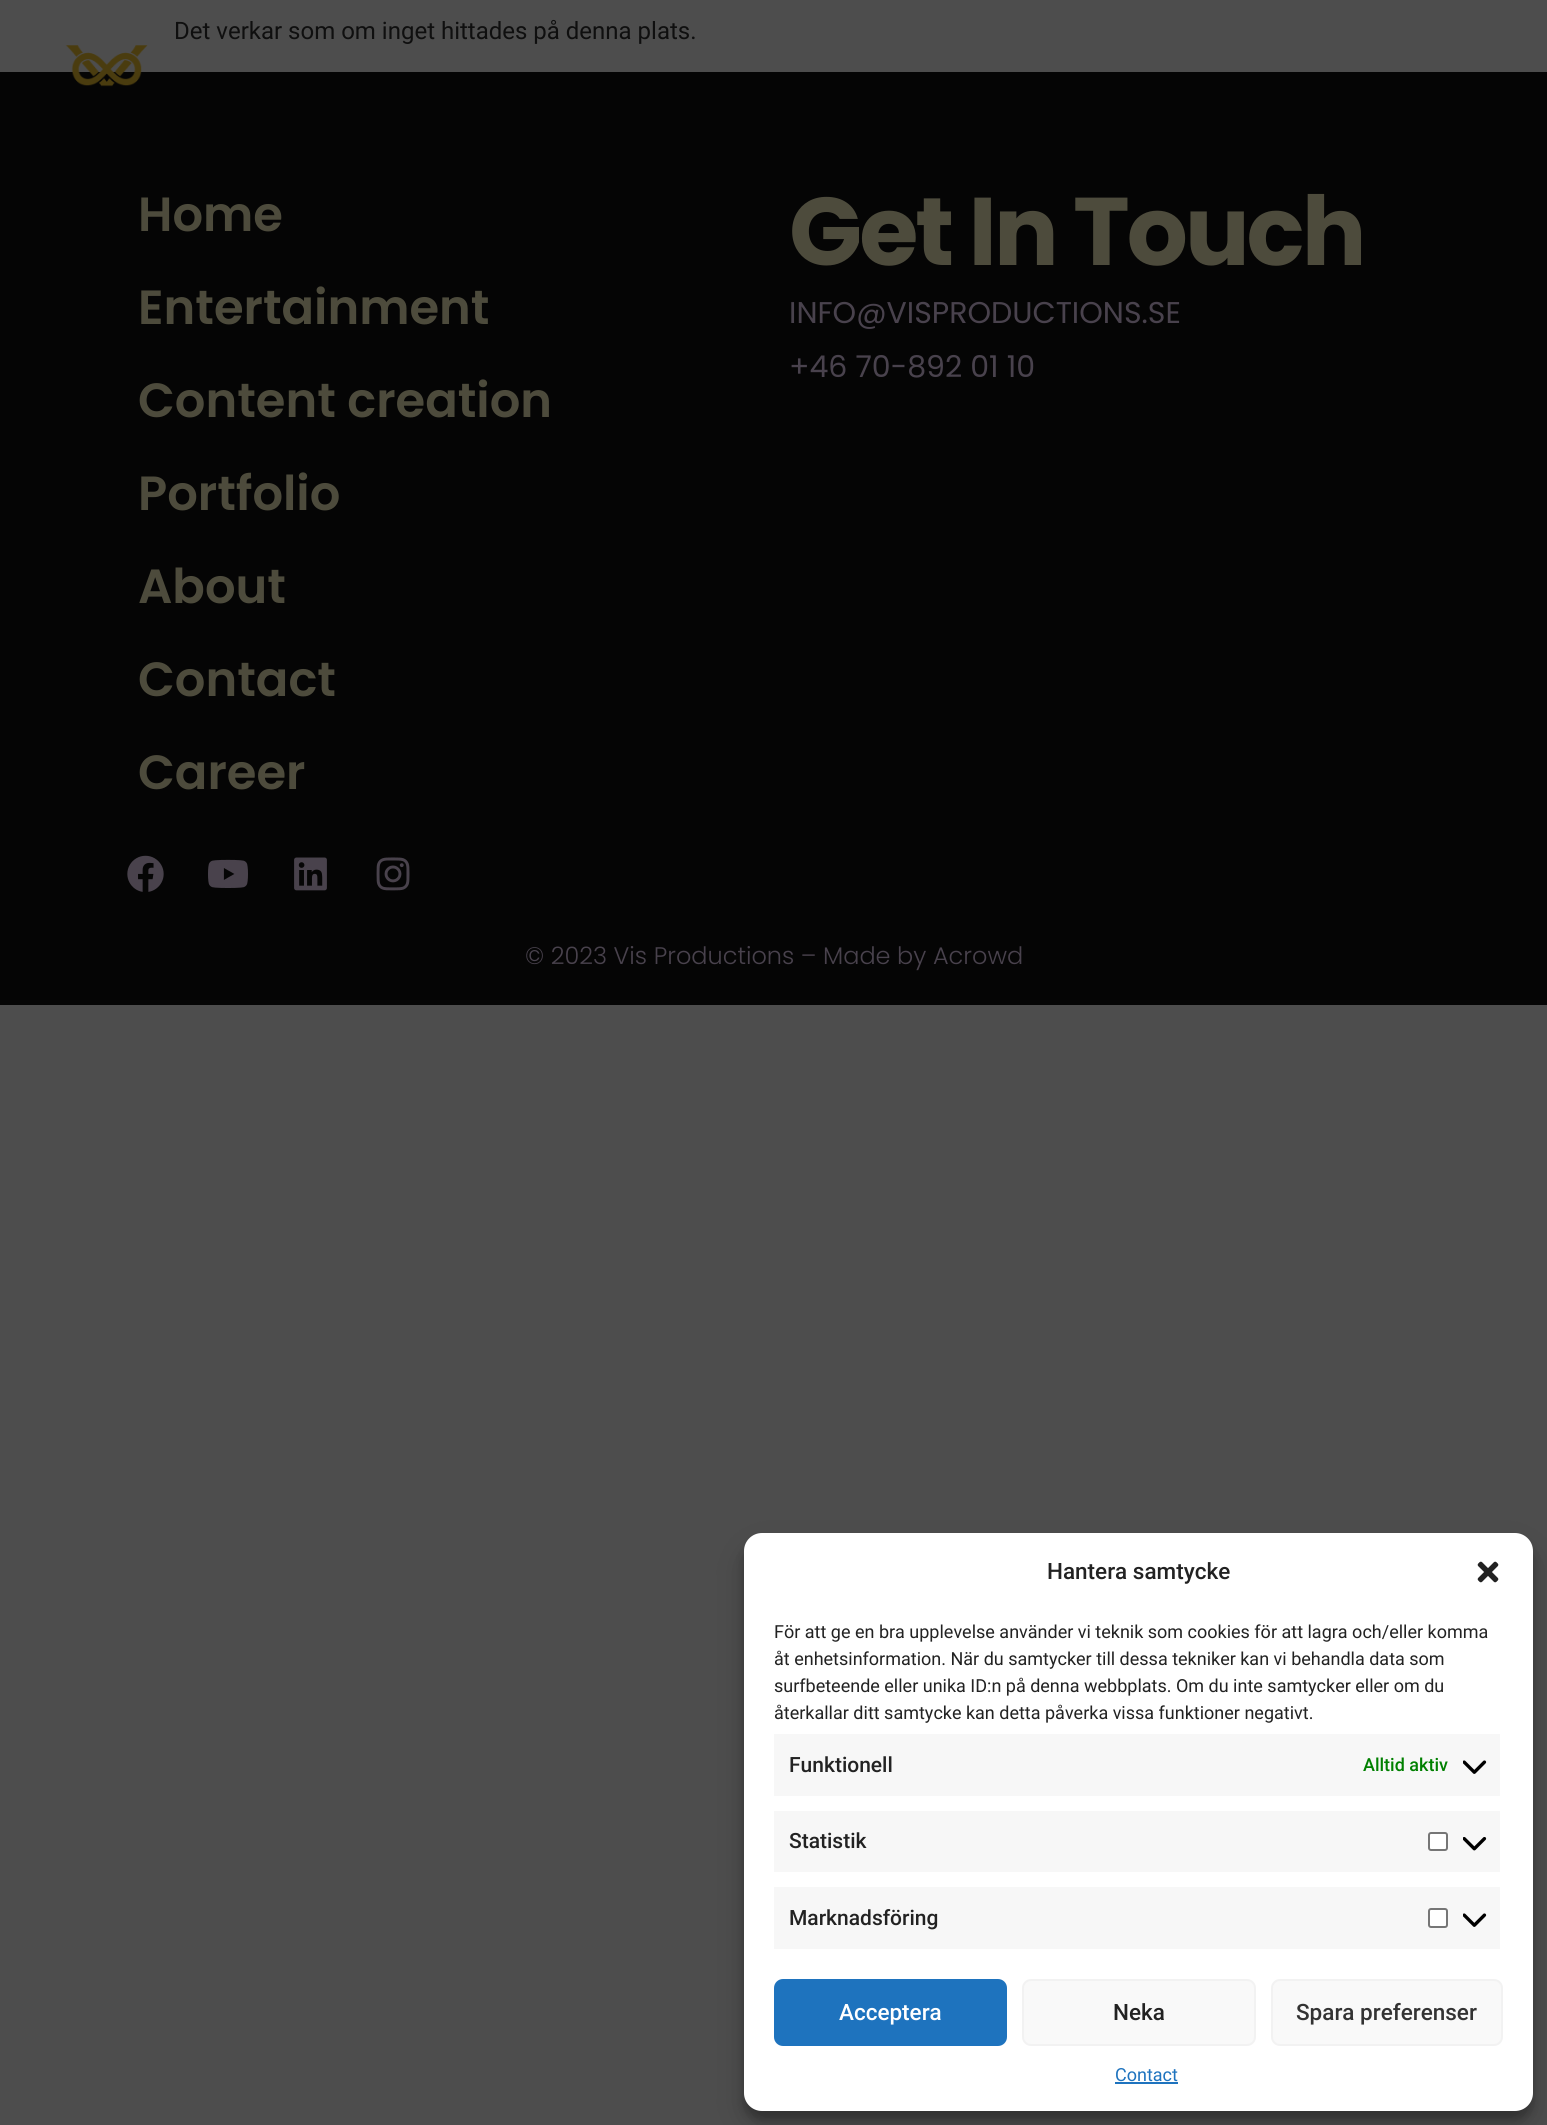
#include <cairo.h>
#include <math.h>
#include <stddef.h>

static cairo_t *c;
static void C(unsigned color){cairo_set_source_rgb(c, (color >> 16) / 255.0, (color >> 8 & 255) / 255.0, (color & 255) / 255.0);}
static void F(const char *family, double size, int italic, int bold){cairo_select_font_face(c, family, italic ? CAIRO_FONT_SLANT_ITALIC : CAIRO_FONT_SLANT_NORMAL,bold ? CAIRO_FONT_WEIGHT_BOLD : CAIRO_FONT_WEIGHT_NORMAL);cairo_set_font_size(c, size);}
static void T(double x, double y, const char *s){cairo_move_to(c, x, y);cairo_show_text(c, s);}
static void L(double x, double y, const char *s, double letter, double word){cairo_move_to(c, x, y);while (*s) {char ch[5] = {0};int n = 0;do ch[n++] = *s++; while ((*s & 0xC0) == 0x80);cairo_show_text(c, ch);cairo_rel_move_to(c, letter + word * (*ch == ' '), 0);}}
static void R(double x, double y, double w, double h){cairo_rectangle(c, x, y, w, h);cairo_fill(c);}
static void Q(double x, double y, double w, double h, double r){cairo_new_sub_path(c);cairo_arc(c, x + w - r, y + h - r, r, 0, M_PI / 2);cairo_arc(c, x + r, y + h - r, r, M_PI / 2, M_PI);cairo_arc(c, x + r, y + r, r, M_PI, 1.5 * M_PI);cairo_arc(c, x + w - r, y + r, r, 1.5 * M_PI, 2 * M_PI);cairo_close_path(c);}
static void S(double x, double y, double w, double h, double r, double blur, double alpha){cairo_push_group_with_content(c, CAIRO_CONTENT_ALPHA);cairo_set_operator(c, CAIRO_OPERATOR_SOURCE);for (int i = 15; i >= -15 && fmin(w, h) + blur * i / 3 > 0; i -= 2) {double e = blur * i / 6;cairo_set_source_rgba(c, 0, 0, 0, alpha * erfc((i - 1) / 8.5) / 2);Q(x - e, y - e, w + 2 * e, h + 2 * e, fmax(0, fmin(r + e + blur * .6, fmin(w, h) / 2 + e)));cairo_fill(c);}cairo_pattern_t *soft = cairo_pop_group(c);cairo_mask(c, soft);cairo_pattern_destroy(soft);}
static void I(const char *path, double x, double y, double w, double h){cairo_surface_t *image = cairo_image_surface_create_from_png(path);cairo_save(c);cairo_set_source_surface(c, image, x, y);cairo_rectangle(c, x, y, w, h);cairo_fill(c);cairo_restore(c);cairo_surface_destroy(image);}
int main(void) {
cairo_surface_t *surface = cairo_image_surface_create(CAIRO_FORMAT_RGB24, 1547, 2125);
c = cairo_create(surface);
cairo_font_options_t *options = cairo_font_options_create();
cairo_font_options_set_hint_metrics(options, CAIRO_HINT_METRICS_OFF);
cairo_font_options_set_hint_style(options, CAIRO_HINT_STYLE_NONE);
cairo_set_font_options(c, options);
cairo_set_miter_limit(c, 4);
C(0x4d4d4d);
cairo_paint(c);
F("Roboto",24,0,0);
C(0x0f0f0f);
T(174,39,"Det verkar som om inget hittades på denna plats.");
C(0x050505);
R(0,72,1547,933);
I("1.png",65,45,83,42);
F("Poppins SemiBold",48,0,0);
C(0x4d4b3c);
T(138,231,"Home");
T(138,324,"Entertainment");
T(138,417,"Content creation");
T(138,510,"Portfolio");
T(138,603,"About");
T(138,696,"Contact");
T(138,789,"Career");
I("2.png",127,855,37,37);
I("3.png",208,859,40,29);
I("4.png",294,857,33,34);
I("5.png",376,857,34,34);
F("Poppins",96,0,1);
L(789,265,"Get In Touch",-3,0);
F("Poppins",30,0,0);
C(0x49424d);
T(789,323,"INFO@VISPRODUCTIONS.SE");
T(789,377,"+46 70-892 01 10");
F("Poppins Light",24,0,0);
T(525,964,"© 2023 Vis Productions – Made by Acrowd");
C(0x000000);
S(744,1542,789,578,18,4.5,.23);
S(744,1548,789,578,18,15,.19);
C(0xffffff);
Q(744,1533,789,578,18);
cairo_fill(c);
F("Roboto Medium",22.5,0,0);
C(0x222222);
T(1047,1579,"Hantera samtycke");
I("6.png",1477,1561,22,22);
F("Roboto",18,0,0);
T(774,1638,"För att ge en bra upplevelse använder vi teknik som cookies för att lagra och/eller komma");
T(774,1665,"åt enhetsinformation. När du samtycker till dessa tekniker kan vi behandla data som");
T(774,1692,"surfbeteende eller unika ID:n på denna webbplats. Om du inte samtycker eller om du");
T(774,1719,"återkallar ditt samtycke kan detta påverka vissa funktioner negativt.");
C(0xf7f7f7);
R(774,1734,726,62);
F("Roboto Medium",21,0,0);
C(0x222222);
T(789,1772,"Funktionell");
F("Roboto Medium",18,0,0);
C(0x008000);
T(1363,1771,"Alltid aktiv");
I("7.png",1463,1760,24,14);
C(0xf7f7f7);
R(774,1811,726,61);
F("Roboto Medium",21,0,0);
C(0x222222);
T(789,1848,"Statistik");
C(0xffffff);
Q(1429,1833,18,17,2);
cairo_fill_preserve(c);
C(0x767676);
cairo_stroke(c);
I("8.png",1463,1837,24,14);
C(0xf7f7f7);
R(774,1887,726,62);
C(0x222222);
T(789,1925,"Marknadsföring");
C(0xffffff);
Q(1429,1909,18,18,2);
cairo_fill_preserve(c);
C(0x767676);
cairo_stroke(c);
I("7.png",1463,1913,24,14);
C(0x1e73be);
Q(775,1980,231,65,8);
cairo_fill_preserve(c);
cairo_stroke(c);
F("Roboto Medium",22.5,0,0);
C(0xffffff);
T(839,2020,"Acceptera");
C(0xf9f9f9);
Q(1023,1980,232,65,8);
cairo_fill_preserve(c);
C(0xf2f2f2);
cairo_stroke(c);
C(0x222222);
T(1113,2020,"Neka");
C(0xf9f9f9);
Q(1272,1980,230,65,8);
cairo_fill_preserve(c);
C(0xf2f2f2);
cairo_stroke(c);
C(0x333333);
T(1296,2020,"Spara preferenser");
F("Roboto",18,0,0);
C(0x1e73be);
T(1115,2081,"Contact");
R(1115,2082,63,2);
cairo_surface_write_to_png(surface, "o.png");
cairo_font_options_destroy(options);
cairo_destroy(c);
cairo_surface_destroy(surface);
return 0;
}
